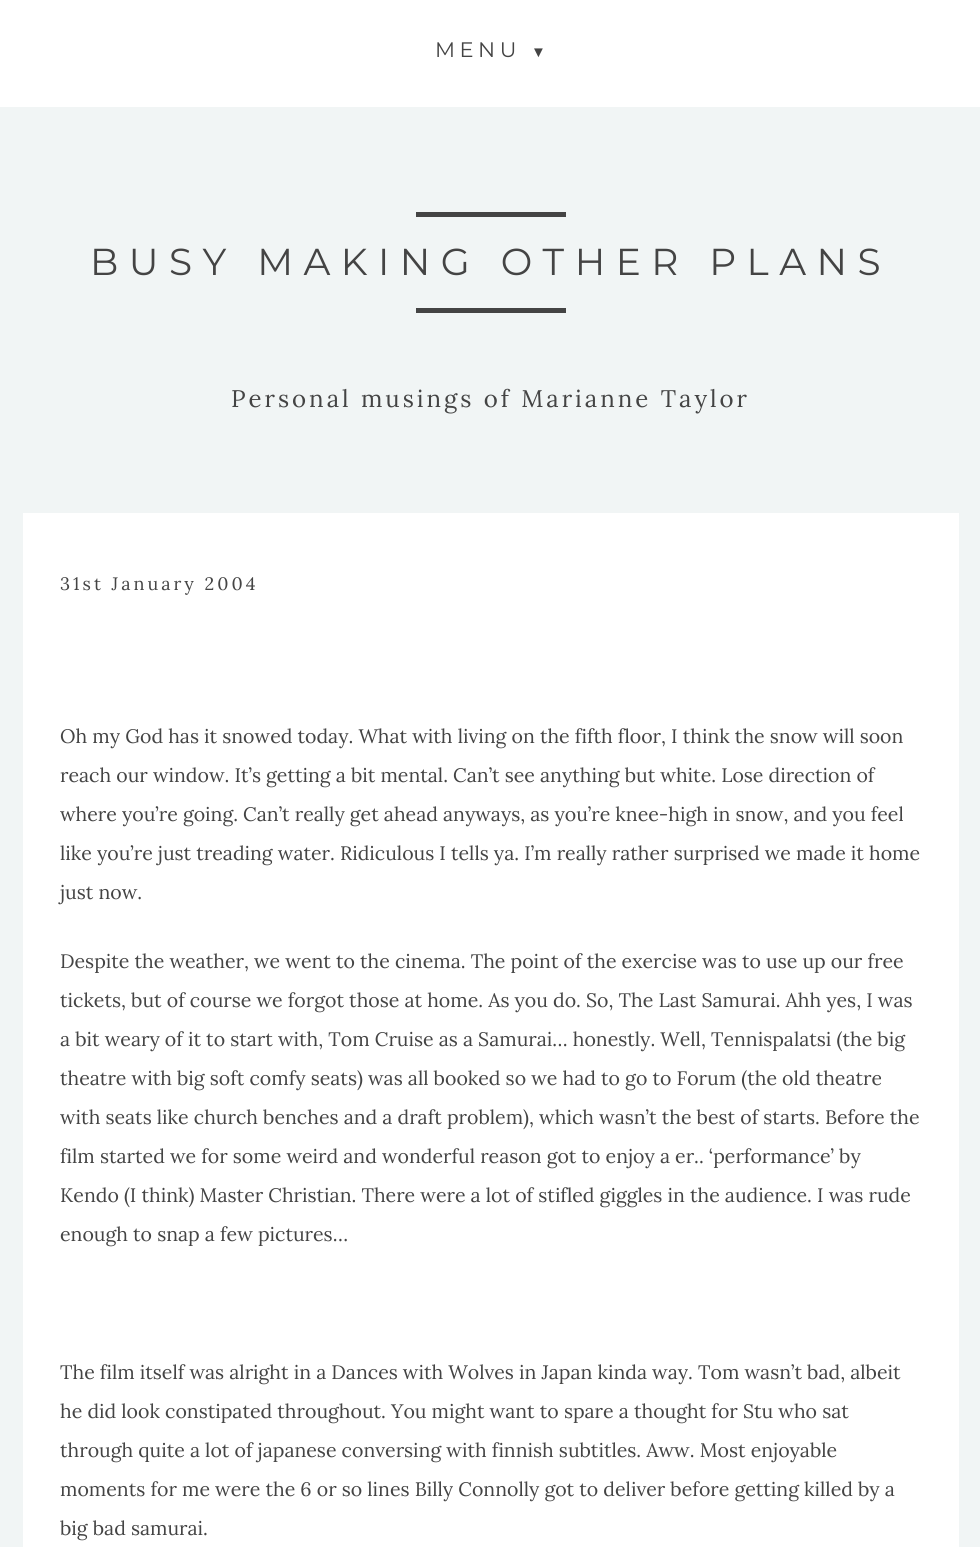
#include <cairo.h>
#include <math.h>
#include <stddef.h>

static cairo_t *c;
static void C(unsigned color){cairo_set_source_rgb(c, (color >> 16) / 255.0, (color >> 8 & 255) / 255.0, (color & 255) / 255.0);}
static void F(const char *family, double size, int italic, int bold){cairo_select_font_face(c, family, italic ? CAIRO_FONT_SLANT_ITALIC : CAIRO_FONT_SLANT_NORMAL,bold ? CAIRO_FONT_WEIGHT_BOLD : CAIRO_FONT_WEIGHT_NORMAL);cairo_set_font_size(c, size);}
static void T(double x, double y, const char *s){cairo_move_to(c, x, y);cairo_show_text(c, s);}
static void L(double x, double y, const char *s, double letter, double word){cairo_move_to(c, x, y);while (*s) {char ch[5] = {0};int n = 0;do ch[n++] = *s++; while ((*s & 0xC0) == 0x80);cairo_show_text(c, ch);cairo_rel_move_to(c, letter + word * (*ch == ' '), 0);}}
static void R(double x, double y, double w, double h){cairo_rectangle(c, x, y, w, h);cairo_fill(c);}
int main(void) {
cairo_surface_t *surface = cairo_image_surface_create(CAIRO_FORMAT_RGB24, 980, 1547);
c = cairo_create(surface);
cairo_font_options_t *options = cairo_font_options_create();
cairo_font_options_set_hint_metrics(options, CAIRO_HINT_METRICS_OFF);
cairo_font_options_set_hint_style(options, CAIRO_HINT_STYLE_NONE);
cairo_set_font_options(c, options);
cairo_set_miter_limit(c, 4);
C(0xf1f5f5);
cairo_paint(c);
C(0xffffff);
R(0,0,980,107);
F("Montserrat",21,0,0);
C(0x444444);
L(435,57,"MENU",4.5,0);
F("Liberation Serif",15,0,1);
T(531,57,"▼");
R(416,212,150,5);
R(416,308,150,5);
F("Montserrat",37.5,0,0);
L(90,275,"BUSY MAKING OTHER PLANS",10.5,0);
F("Lora",24,0,0);
L(231,407,"Personal musings of Marianne Taylor",3,0);
C(0xffffff);
R(23,513,936,1034);
F("Lora",18,0,0);
C(0x444444);
L(60,590,"31st January 2004",3,0);
F("Lora",19.5,0,0);
T(60,743,"Oh my God has it snowed today. What with living on the fifth floor, I think the snow will soon");
T(60,782,"reach our window. It’s getting a bit mental. Can’t see anything but white. Lose direction of");
T(60,821,"where you’re going. Can’t really get ahead anyways, as you’re knee-high in snow, and you feel");
T(60,860,"like you’re just treading water. Ridiculous I tells ya. I’m really rather surprised we made it home");
T(60,899,"just now.");
T(60,968,"Despite the weather, we went to the cinema. The point of the exercise was to use up our free");
T(60,1007,"tickets, but of course we forgot those at home. As you do. So, The Last Samurai. Ahh yes, I was");
T(60,1046,"a bit weary of it to start with, Tom Cruise as a Samurai… honestly. Well, Tennispalatsi (the big");
T(60,1085,"theatre with big soft comfy seats) was all booked so we had to go to Forum (the old theatre");
T(60,1124,"with seats like church benches and a draft problem), which wasn’t the best of starts. Before the");
T(60,1163,"film started we for some weird and wonderful reason got to enjoy a er.. ‘performance’ by");
T(60,1202,"Kendo (I think) Master Christian. There were a lot of stifled giggles in the audience. I was rude");
T(60,1241,"enough to snap a few pictures…");
T(60,1379,"The film itself was alright in a Dances with Wolves in Japan kinda way. Tom wasn’t bad, albeit");
T(60,1418,"he did look constipated throughout. You might want to spare a thought for Stu who sat");
T(60,1457,"through quite a lot of japanese conversing with finnish subtitles. Aww. Most enjoyable");
T(60,1496,"moments for me were the 6 or so lines Billy Connolly got to deliver before getting killed by a");
T(60,1535,"big bad samurai.");
cairo_surface_write_to_png(surface, "o.png");
cairo_font_options_destroy(options);
cairo_destroy(c);
cairo_surface_destroy(surface);
return 0;
}
